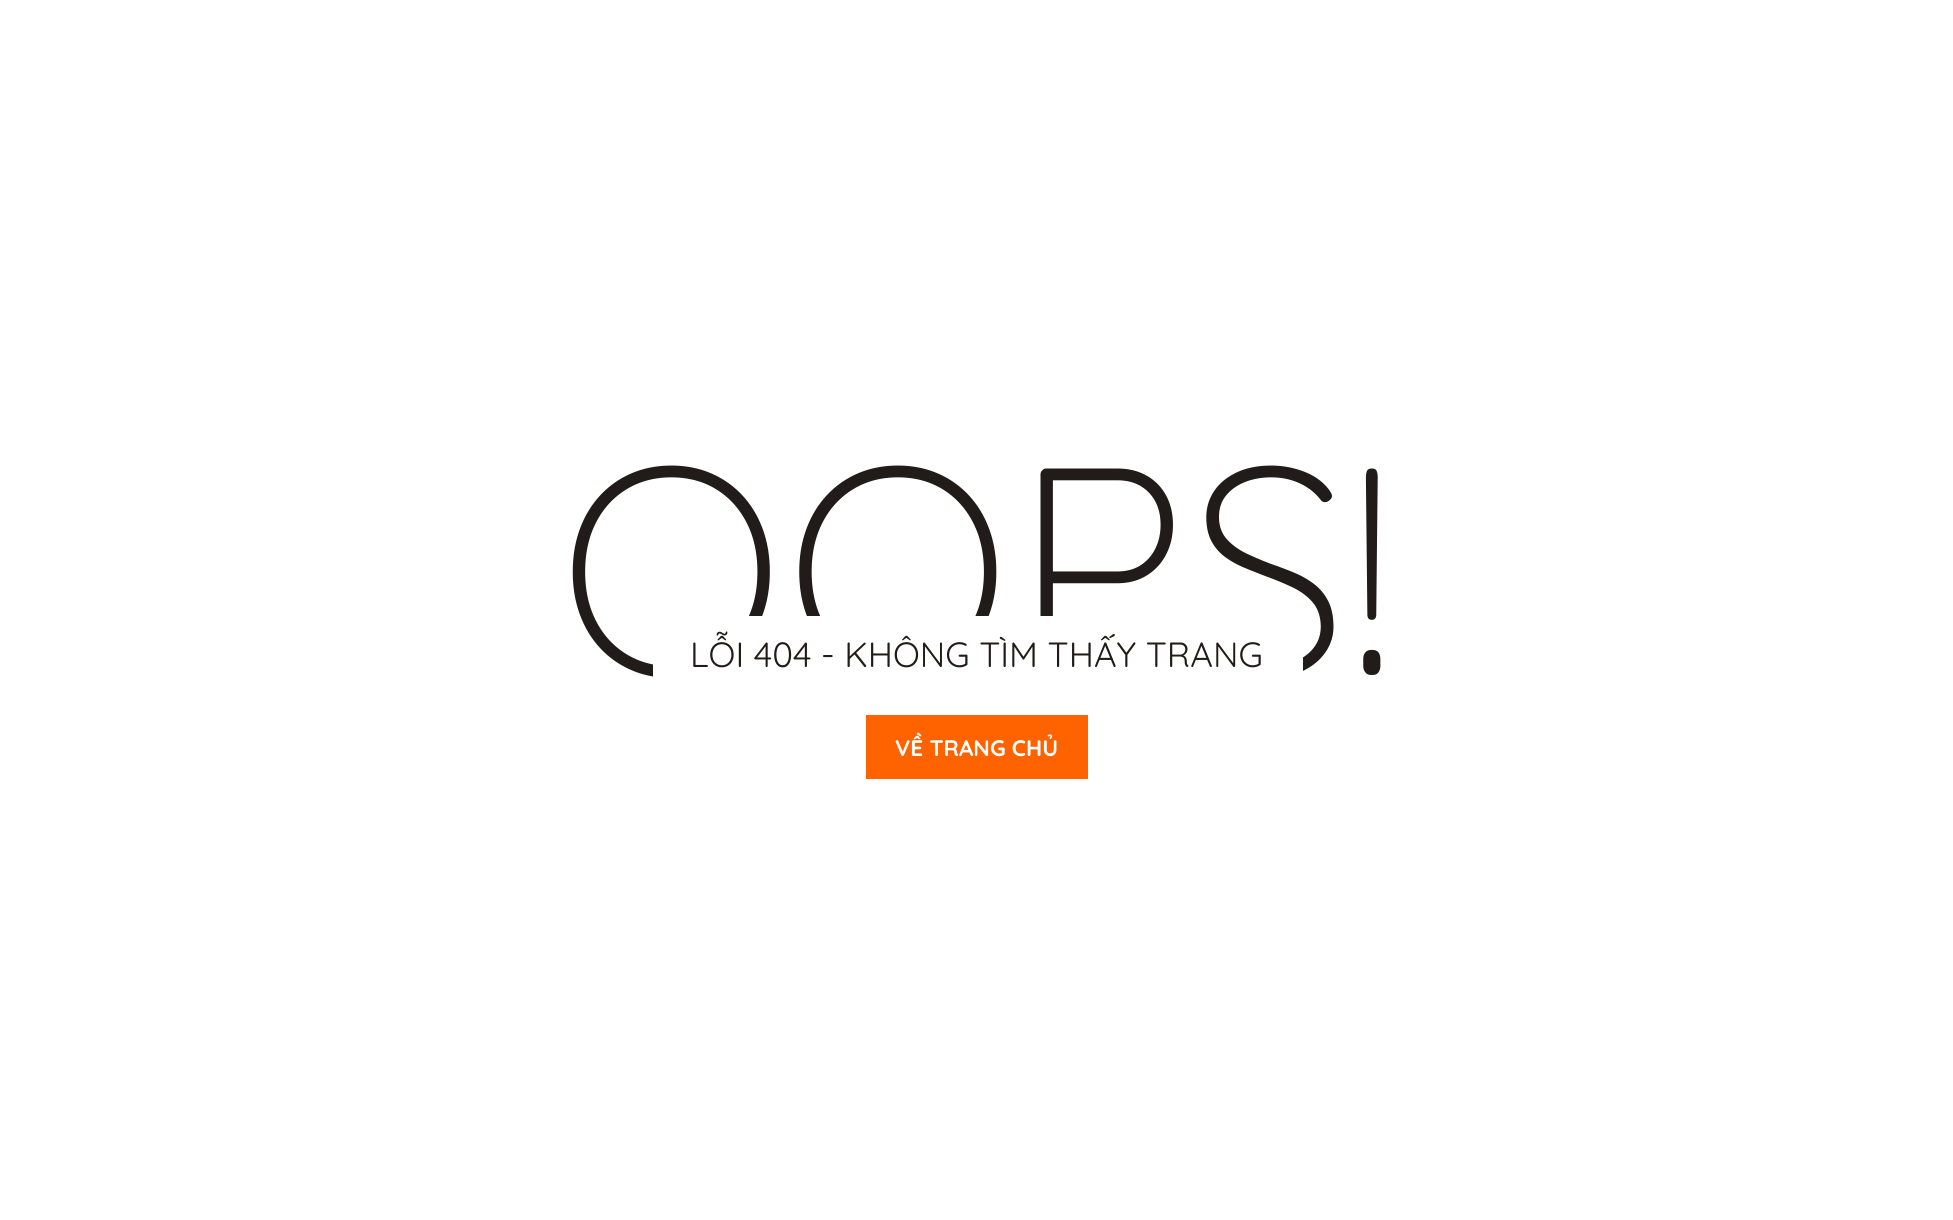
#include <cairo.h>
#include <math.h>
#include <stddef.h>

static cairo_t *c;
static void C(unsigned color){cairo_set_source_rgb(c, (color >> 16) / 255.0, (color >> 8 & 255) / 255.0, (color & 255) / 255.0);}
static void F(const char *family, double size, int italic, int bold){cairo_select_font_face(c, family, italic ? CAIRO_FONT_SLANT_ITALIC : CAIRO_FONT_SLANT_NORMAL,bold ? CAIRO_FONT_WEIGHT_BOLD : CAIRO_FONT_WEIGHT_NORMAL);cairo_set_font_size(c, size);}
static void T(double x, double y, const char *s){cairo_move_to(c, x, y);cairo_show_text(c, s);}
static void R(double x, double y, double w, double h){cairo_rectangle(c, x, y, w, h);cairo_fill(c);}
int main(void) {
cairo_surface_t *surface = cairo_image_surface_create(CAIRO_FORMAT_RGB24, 1953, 1220);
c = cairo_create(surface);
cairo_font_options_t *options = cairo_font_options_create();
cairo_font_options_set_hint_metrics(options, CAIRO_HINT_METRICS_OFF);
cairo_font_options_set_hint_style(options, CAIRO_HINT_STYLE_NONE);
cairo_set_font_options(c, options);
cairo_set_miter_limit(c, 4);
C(0xffffff);
cairo_paint(c);
F("Quicksand Light",295,0,0);
C(0x211b19);
T(558,675,"OOPS!");
C(0xffffff);
R(653,616,650,62);
F("Quicksand",35,0,0);
C(0x211b19);
T(690,667,"LỖI 404 - KHÔNG TÌM THẤY TRANG");
C(0xff6300);
R(866,715,222,64);
F("Quicksand",22.5,0,1);
C(0xffffff);
T(895,756,"VỀ TRANG CHỦ");
cairo_surface_write_to_png(surface, "o.png");
cairo_font_options_destroy(options);
cairo_destroy(c);
cairo_surface_destroy(surface);
return 0;
}
